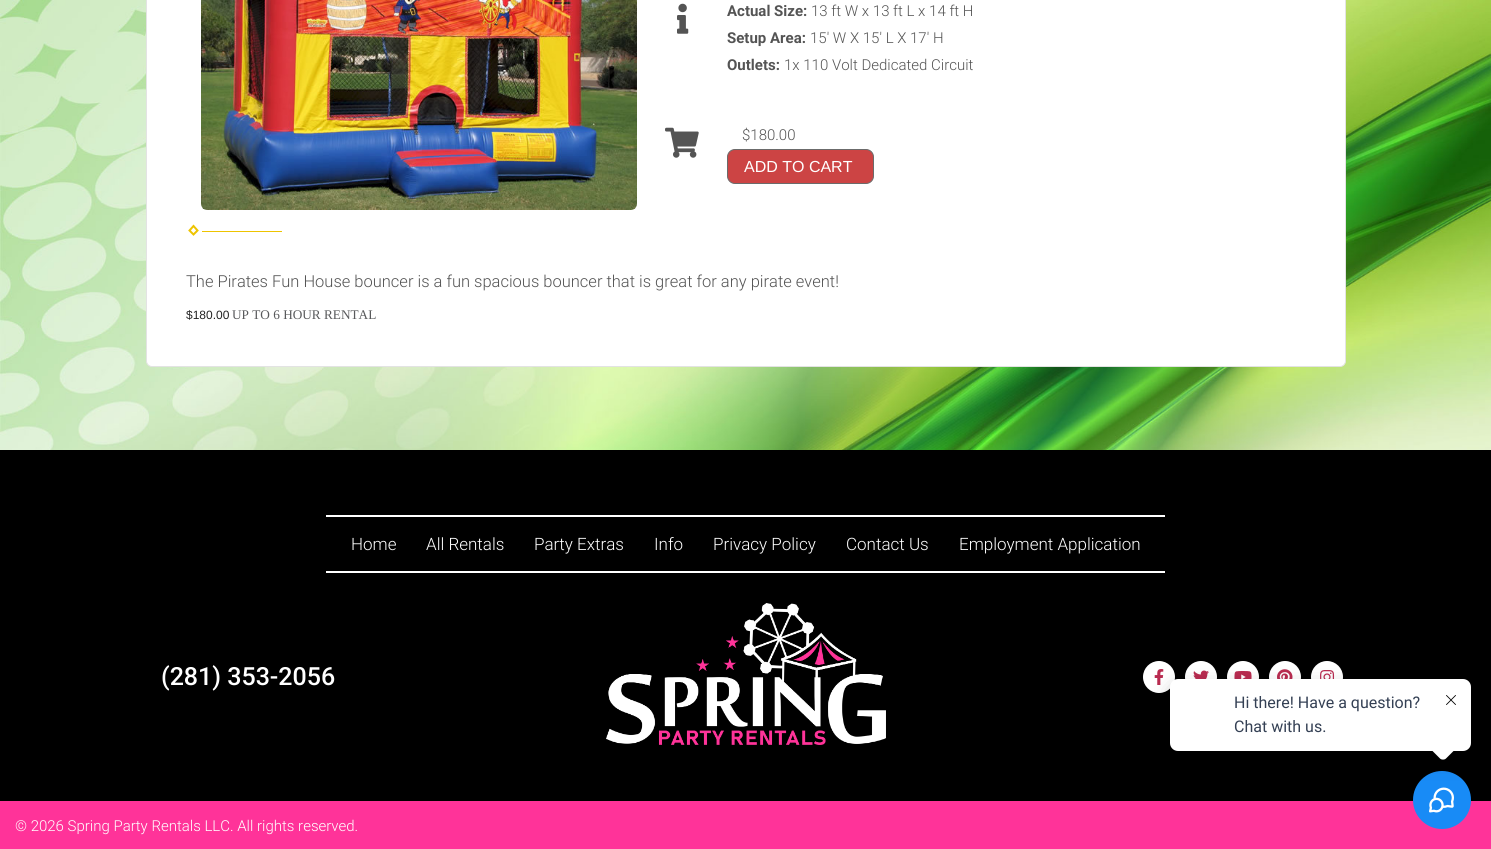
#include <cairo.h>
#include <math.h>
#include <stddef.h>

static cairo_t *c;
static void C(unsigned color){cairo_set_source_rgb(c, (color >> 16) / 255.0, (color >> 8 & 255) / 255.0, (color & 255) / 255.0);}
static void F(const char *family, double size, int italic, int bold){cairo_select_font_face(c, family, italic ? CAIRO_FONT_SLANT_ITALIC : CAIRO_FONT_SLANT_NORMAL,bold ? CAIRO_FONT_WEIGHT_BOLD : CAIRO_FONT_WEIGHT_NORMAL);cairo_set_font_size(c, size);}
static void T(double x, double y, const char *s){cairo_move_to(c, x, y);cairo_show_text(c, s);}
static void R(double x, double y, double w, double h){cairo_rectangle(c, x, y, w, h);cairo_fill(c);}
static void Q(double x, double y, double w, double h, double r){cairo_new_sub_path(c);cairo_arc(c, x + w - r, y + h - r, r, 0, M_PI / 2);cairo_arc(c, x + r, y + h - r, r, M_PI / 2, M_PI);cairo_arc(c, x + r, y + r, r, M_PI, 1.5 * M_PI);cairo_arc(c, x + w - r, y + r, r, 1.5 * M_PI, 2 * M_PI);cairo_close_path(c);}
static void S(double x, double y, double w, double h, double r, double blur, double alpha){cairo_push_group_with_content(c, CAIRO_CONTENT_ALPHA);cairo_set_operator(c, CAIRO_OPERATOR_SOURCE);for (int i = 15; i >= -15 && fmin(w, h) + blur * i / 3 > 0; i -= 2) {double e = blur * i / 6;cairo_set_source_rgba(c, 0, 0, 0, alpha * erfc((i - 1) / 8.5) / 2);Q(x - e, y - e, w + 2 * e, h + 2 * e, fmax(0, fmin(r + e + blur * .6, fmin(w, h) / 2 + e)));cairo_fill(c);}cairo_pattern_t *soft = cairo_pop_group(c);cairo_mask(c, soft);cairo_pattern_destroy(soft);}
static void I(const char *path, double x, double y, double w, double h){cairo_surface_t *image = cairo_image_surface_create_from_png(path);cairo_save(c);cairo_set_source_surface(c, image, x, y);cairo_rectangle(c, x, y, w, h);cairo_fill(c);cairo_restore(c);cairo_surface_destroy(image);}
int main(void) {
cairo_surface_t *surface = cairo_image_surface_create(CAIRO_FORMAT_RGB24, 1491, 849);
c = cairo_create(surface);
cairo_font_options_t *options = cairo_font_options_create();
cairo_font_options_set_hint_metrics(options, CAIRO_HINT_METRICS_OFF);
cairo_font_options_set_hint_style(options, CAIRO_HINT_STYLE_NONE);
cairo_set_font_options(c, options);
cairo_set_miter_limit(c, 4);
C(0xffffff);
cairo_paint(c);
I("1.png",0,0,1491,450);
C(0xffffff);
Q(146.5,-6.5,1199,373,5.5);
cairo_fill_preserve(c);
C(0xe3e3e3);
cairo_set_line_width(c,1);
cairo_stroke(c);
I("2.png",201,0,436,210);
I("3.png",677,3,12,31);
F("Roboto",15,0,1);
C(0x545454);
T(727,16,"Actual Size:");
F("Roboto Light",15,0,0);
T(811,16,"13 ft W x 13 ft L x 14 ft H");
F("Roboto",15,0,1);
T(727,43,"Setup Area:");
F("Roboto Light",15,0,0);
T(810,43,"15' W X 15' L X 17' H");
F("Roboto",15,0,1);
T(727,70,"Outlets:");
F("Roboto Light",15,0,0);
T(784,70,"1x 110 Volt Dedicated Circuit");
I("4.png",665,127,34,31);
T(742,140,"$180.00");
C(0xcc4444);
Q(727.5,149.5,146,34,7.5);
cairo_fill_preserve(c);
C(0x6b6b6b);
cairo_stroke(c);
F("Liberation Sans",16,0,0);
C(0xffffff);
T(744,172,"ADD TO CART");
cairo_new_path(c);
cairo_move_to(c,193.5,226);
cairo_line_to(c,197.5,230.5);
cairo_line_to(c,193.5,234.5);
cairo_line_to(c,189.5,230.5);
cairo_close_path(c);
C(0xeec400);
cairo_set_line_width(c,2);
cairo_stroke(c);
R(202,231,80,1);
F("Roboto Light",16.5,0,0);
C(0x545454);
T(186,287,"The Pirates Fun House bouncer is a fun spacious bouncer that is great for any pirate event!");
F("Liberation Sans",12,0,0);
C(0x222222);
T(186,319,"$180.00");
F("Liberation Serif",13.25,0,0);
C(0x58595b);
T(232,319,"UP TO 6 HOUR RENTAL");
C(0x000000);
R(0,450,1491,351);
C(0xffffff);
R(326,515,839,2);
R(326,571,839,2);
F("Roboto Light",17,0,0);
T(351,550,"Home");
T(426,550,"All Rentals");
T(534,550,"Party Extras");
T(654,550,"Info");
T(713,550,"Privacy Policy");
T(846,550,"Contact Us");
T(959,550,"Employment Application");
F("Roboto Medium",25,0,0);
T(161,685,"(281) 353-2056");
I("5.png",606,603,280,142);
cairo_arc(c,1159,677,15,0,2 * M_PI);
cairo_fill_preserve(c);
cairo_stroke(c);
I("6.png",1154,669,10,16);
cairo_arc(c,1201,677,15,0,2 * M_PI);
cairo_fill_preserve(c);
cairo_stroke(c);
I("7.png",1193,670,16,9);
cairo_arc(c,1243,677,15,0,2 * M_PI);
cairo_fill_preserve(c);
cairo_stroke(c);
I("8.png",1234,671,18,8);
cairo_arc(c,1285,677,15,0,2 * M_PI);
cairo_fill_preserve(c);
cairo_stroke(c);
I("9.png",1277,669,16,10);
cairo_arc(c,1327,677,15,0,2 * M_PI);
cairo_fill_preserve(c);
cairo_stroke(c);
I("10.png",1320,670,15,9);
C(0xff3399);
R(0,801,1491,48);
F("Roboto Light",15,0,0);
C(0xffffff);
T(15,831,"© 2026 Spring Party Rentals LLC. All rights reserved.");
C(0x188bf6);
cairo_new_path(c);
cairo_arc(c,1442,800,29,0,2 * M_PI);
cairo_fill(c);
I("12.png",1429,787,25,26);
C(0x000000);
S(1170,687,301,72,8,10,.24);
C(0xffffff);
Q(1170,679,301,72,8);
cairo_fill(c);
F("Roboto",16,0,0);
C(0x344054);
T(1234,708,"Hi there! Have a question?");
T(1234,732,"Chat with us.");
C(0xffffff);
cairo_new_path(c);
cairo_move_to(c,1446,735.5);
cairo_line_to(c,1454.5,744);
cairo_curve_to(c,1456,745.5,1456,748.5,1454.5,750);
cairo_line_to(c,1446,758.5);
cairo_curve_to(c,1444.5,760,1441.5,760,1440,758.5);
cairo_line_to(c,1431.5,750);
cairo_curve_to(c,1430,748.5,1430,745.5,1431.5,744);
cairo_line_to(c,1440,735.5);
cairo_curve_to(c,1441.5,734,1444.5,734,1446,735.5);
cairo_close_path(c);
cairo_fill(c);
I("11.png",1446,695,10,10);
cairo_surface_write_to_png(surface, "o.png");
cairo_font_options_destroy(options);
cairo_destroy(c);
cairo_surface_destroy(surface);
return 0;
}
